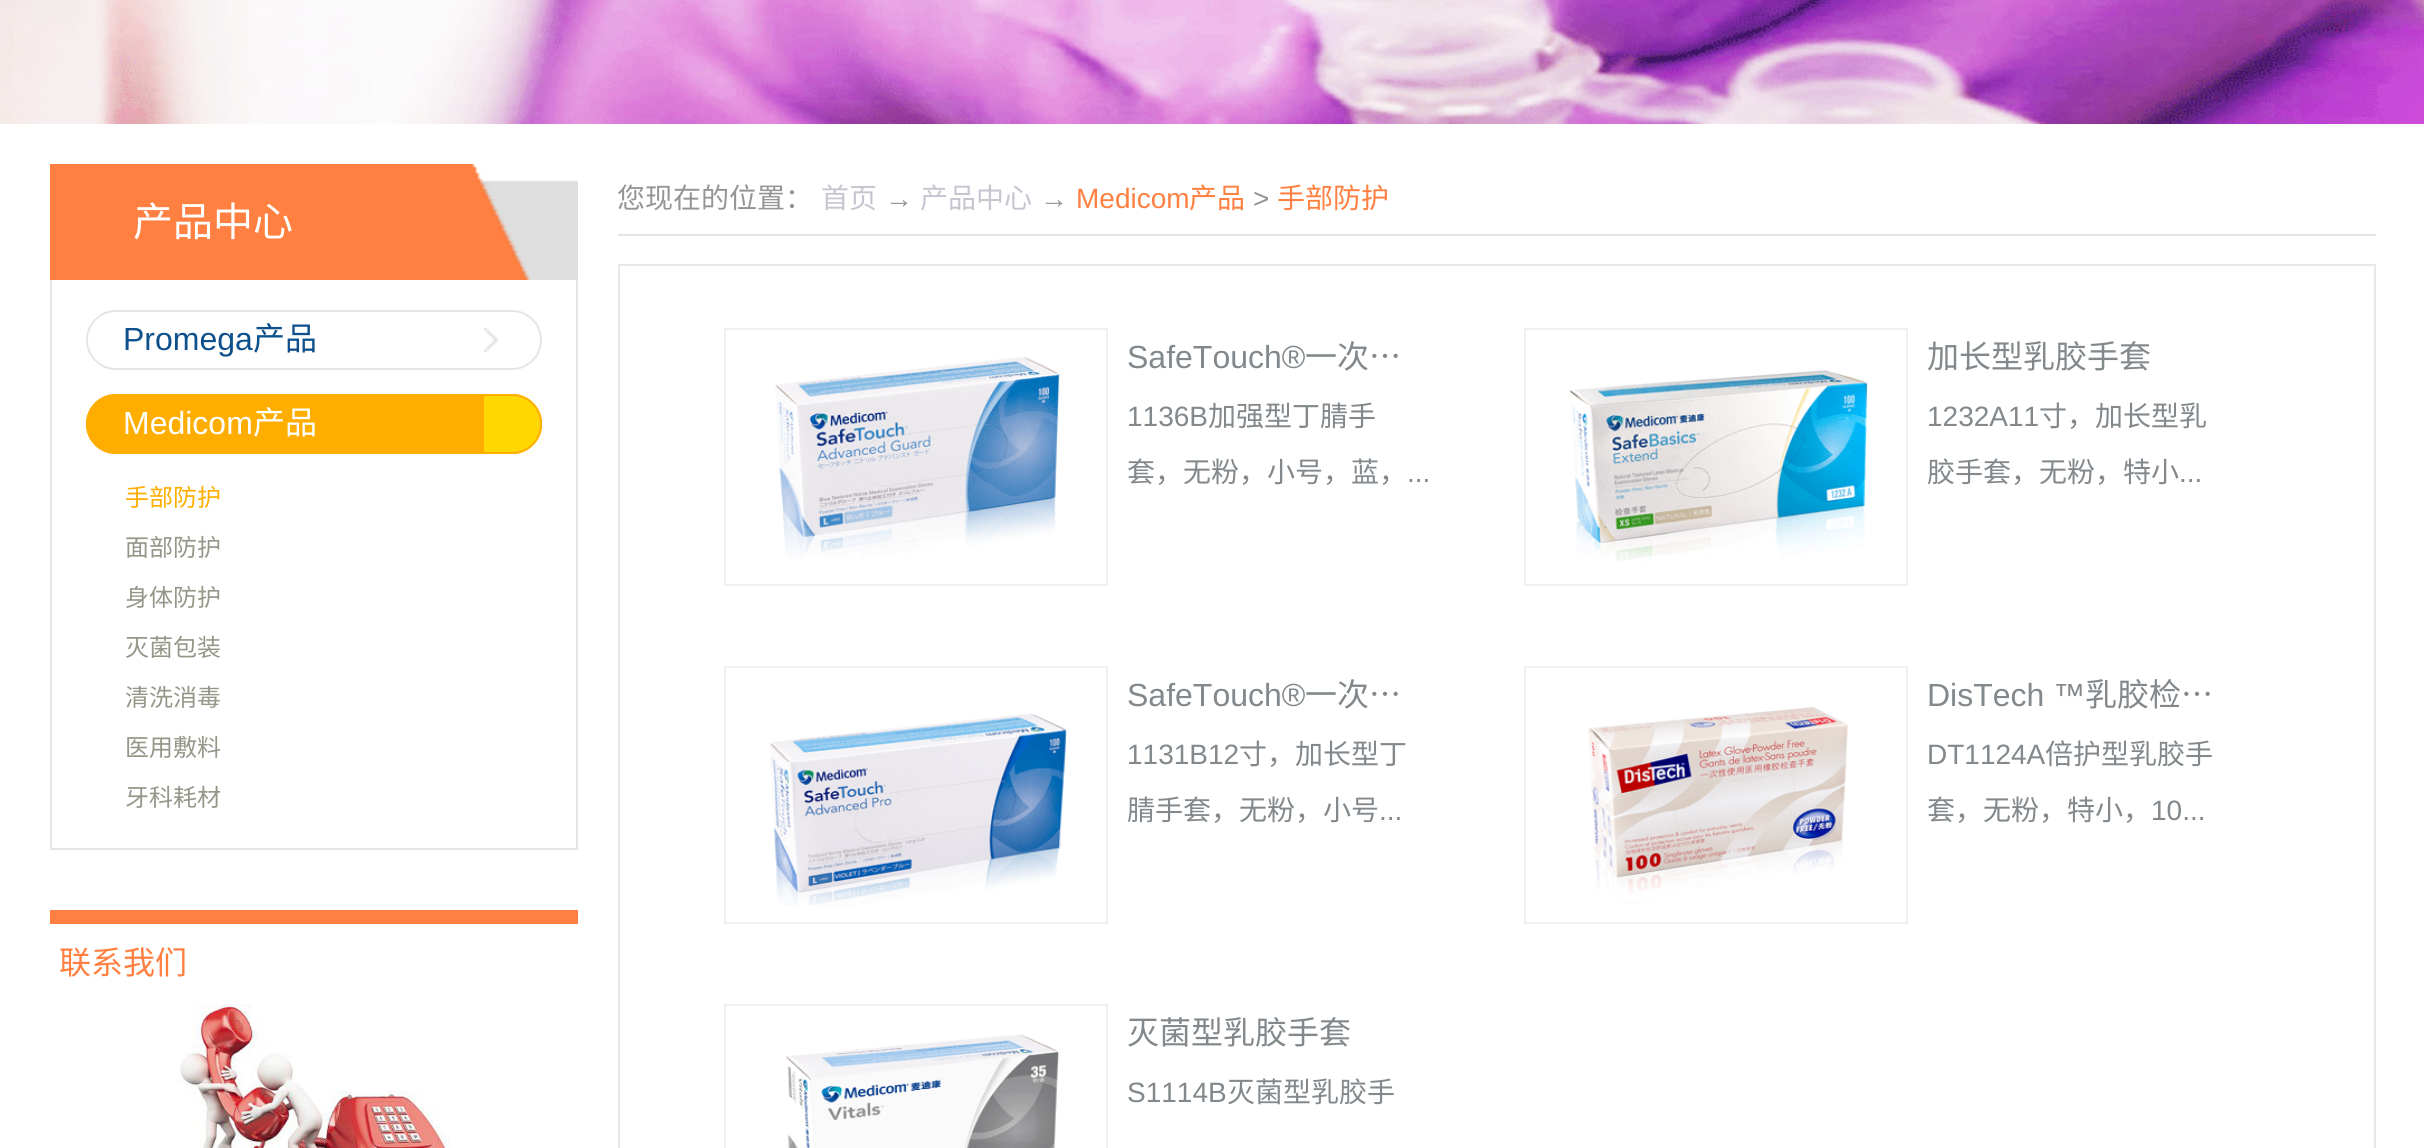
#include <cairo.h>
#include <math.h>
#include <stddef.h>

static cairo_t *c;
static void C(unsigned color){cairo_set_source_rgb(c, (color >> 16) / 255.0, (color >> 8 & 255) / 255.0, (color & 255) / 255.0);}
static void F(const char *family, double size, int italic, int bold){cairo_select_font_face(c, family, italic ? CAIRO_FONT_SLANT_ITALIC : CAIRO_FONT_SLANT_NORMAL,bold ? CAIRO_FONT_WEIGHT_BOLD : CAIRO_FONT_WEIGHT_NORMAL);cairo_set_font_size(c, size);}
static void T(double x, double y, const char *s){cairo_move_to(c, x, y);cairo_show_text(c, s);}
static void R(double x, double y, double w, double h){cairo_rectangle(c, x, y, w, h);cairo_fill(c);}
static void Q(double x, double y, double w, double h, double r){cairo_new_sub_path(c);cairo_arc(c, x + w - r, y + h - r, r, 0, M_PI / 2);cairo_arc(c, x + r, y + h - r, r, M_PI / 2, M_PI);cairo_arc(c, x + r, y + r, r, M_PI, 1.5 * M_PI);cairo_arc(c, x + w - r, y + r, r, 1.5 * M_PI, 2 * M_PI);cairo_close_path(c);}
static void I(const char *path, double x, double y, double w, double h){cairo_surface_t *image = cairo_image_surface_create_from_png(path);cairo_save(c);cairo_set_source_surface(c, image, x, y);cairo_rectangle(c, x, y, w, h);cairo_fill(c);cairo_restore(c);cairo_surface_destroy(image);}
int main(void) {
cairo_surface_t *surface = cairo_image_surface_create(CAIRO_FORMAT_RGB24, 2424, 1148);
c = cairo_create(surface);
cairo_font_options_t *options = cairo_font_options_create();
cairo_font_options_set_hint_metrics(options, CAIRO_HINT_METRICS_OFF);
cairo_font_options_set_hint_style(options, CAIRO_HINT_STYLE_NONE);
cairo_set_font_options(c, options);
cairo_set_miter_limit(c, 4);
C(0xffffff);
cairo_paint(c);
I("1.png",0,0,2424,124);
I("2.png",50,164,528,116);
F("Noto Sans CJK SC",40,0,0);
C(0xffffff);
T(133,236,"产品中心");
C(0xe6e5e5);
R(576,280,2,570);
R(50,848,528,2);
R(50,280,2,570);
I("3.png",484,328,14,24);
Q(87,311,454,58,29);
C(0xe5e5e5);
cairo_stroke(c);
F("Liberation Sans",32,0,0);
C(0x0e508c);
T(123,350,"Promega");
F("Noto Sans CJK SC",32,0,0);
T(253,350,"产品");
C(0xffae00);
Q(86,394,456,60,30);
cairo_fill(c);
I("4.png",484,394,58,60);
Q(87,395,454,58,29);
cairo_stroke(c);
F("Liberation Sans",32,0,0);
C(0xffffff);
T(123,434,"Medicom");
F("Noto Sans CJK SC",32,0,0);
T(253,434,"产品");
F("Noto Sans CJK SC",24,0,0);
C(0xffae00);
T(125,506,"手部防护");
C(0x969688);
T(125,556,"面部防护");
T(125,606,"身体防护");
T(125,656,"灭菌包装");
T(125,706,"清洗消毒");
T(125,756,"医用敷料");
T(125,806,"牙科耗材");
C(0xff8040);
R(50,910,528,14);
F("Noto Sans CJK SC",32,0,0);
T(59,974,"联系我们");
I("5.png",179,1004,271,144);
C(0xe5e5e5);
R(618,234,1758,2);
F("Noto Sans CJK SC",28,0,0);
C(0x959595);
T(617,208,"您现在的位置：");
C(0xc5c7d0);
T(821,208,"首页");
F("Liberation Sans",28,0,0);
C(0x959595);
T(885,208,"→");
F("Noto Sans CJK SC",28,0,0);
C(0xc5c7d0);
T(920,208,"产品中心");
F("Liberation Sans",28,0,0);
C(0x959595);
T(1040,208,"→");
C(0xff8040);
T(1076,208,"Medicom");
F("Noto Sans CJK SC",28,0,0);
T(1189,208,"产品");
F("Liberation Sans",28,0,0);
C(0x959595);
T(1253,208,">");
F("Noto Sans CJK SC",28,0,0);
C(0xff8040);
T(1277,208,"手部防护");
cairo_rectangle(c,619,265,1756,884);
C(0xe8e8e8);
cairo_stroke(c);
cairo_rectangle(c,725,329,382,256);
C(0xf0f0f0);
cairo_stroke(c);
I("6.png",775,356,285,203);
F("Liberation Sans",32,0,0);
C(0x82888b);
T(1127,368,"SafeTouch®");
F("Noto Sans CJK SC",32,0,0);
T(1305,368,"一次…");
F("Liberation Sans",28,0,0);
T(1127,426,"1136B");
F("Noto Sans CJK SC",28,0,0);
T(1208,426,"加强型丁腈手");
T(1127,482,"套，无粉，小号，蓝，");
F("Liberation Sans",28,0,0);
T(1407,482,"...");
cairo_rectangle(c,1525,329,382,256);
C(0xf0f0f0);
cairo_stroke(c);
I("7.png",1569,370,299,192);
F("Noto Sans CJK SC",32,0,0);
C(0x82888b);
T(1927,368,"加长型乳胶手套");
F("Liberation Sans",28,0,0);
T(1927,426,"1232A11");
F("Noto Sans CJK SC",28,0,0);
T(2039,426,"寸，加长型乳");
T(1927,482,"胶手套，无粉，特小");
F("Liberation Sans",28,0,0);
T(2179,482,"...");
cairo_rectangle(c,725,667,382,256);
C(0xf0f0f0);
cairo_stroke(c);
I("8.png",769,713,298,194);
F("Liberation Sans",32,0,0);
C(0x82888b);
T(1127,706,"SafeTouch®");
F("Noto Sans CJK SC",32,0,0);
T(1305,706,"一次…");
F("Liberation Sans",28,0,0);
T(1127,764,"1131B12");
F("Noto Sans CJK SC",28,0,0);
T(1239,764,"寸，加长型丁");
T(1127,820,"腈手套，无粉，小号");
F("Liberation Sans",28,0,0);
T(1379,820,"...");
cairo_rectangle(c,1525,667,382,256);
C(0xf0f0f0);
cairo_stroke(c);
I("9.png",1588,707,260,196);
F("Liberation Sans",32,0,0);
C(0x82888b);
T(1927,706,"DisTech ™");
F("Noto Sans CJK SC",32,0,0);
T(2085,706,"乳胶检…");
F("Liberation Sans",28,0,0);
T(1927,764,"DT1124A");
F("Noto Sans CJK SC",28,0,0);
T(2045,764,"倍护型乳胶手");
T(1927,820,"套，无粉，特小，");
F("Liberation Sans",28,0,0);
T(2151,820,"10...");
cairo_rectangle(c,725,1005,382,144);
C(0xf0f0f0);
cairo_stroke(c);
I("10.png",786,1034,274,114);
F("Noto Sans CJK SC",32,0,0);
C(0x82888b);
T(1127,1044,"灭菌型乳胶手套");
F("Liberation Sans",28,0,0);
T(1127,1102,"S1114B");
F("Noto Sans CJK SC",28,0,0);
T(1227,1102,"灭菌型乳胶手");
cairo_surface_write_to_png(surface, "o.png");
cairo_font_options_destroy(options);
cairo_destroy(c);
cairo_surface_destroy(surface);
return 0;
}
